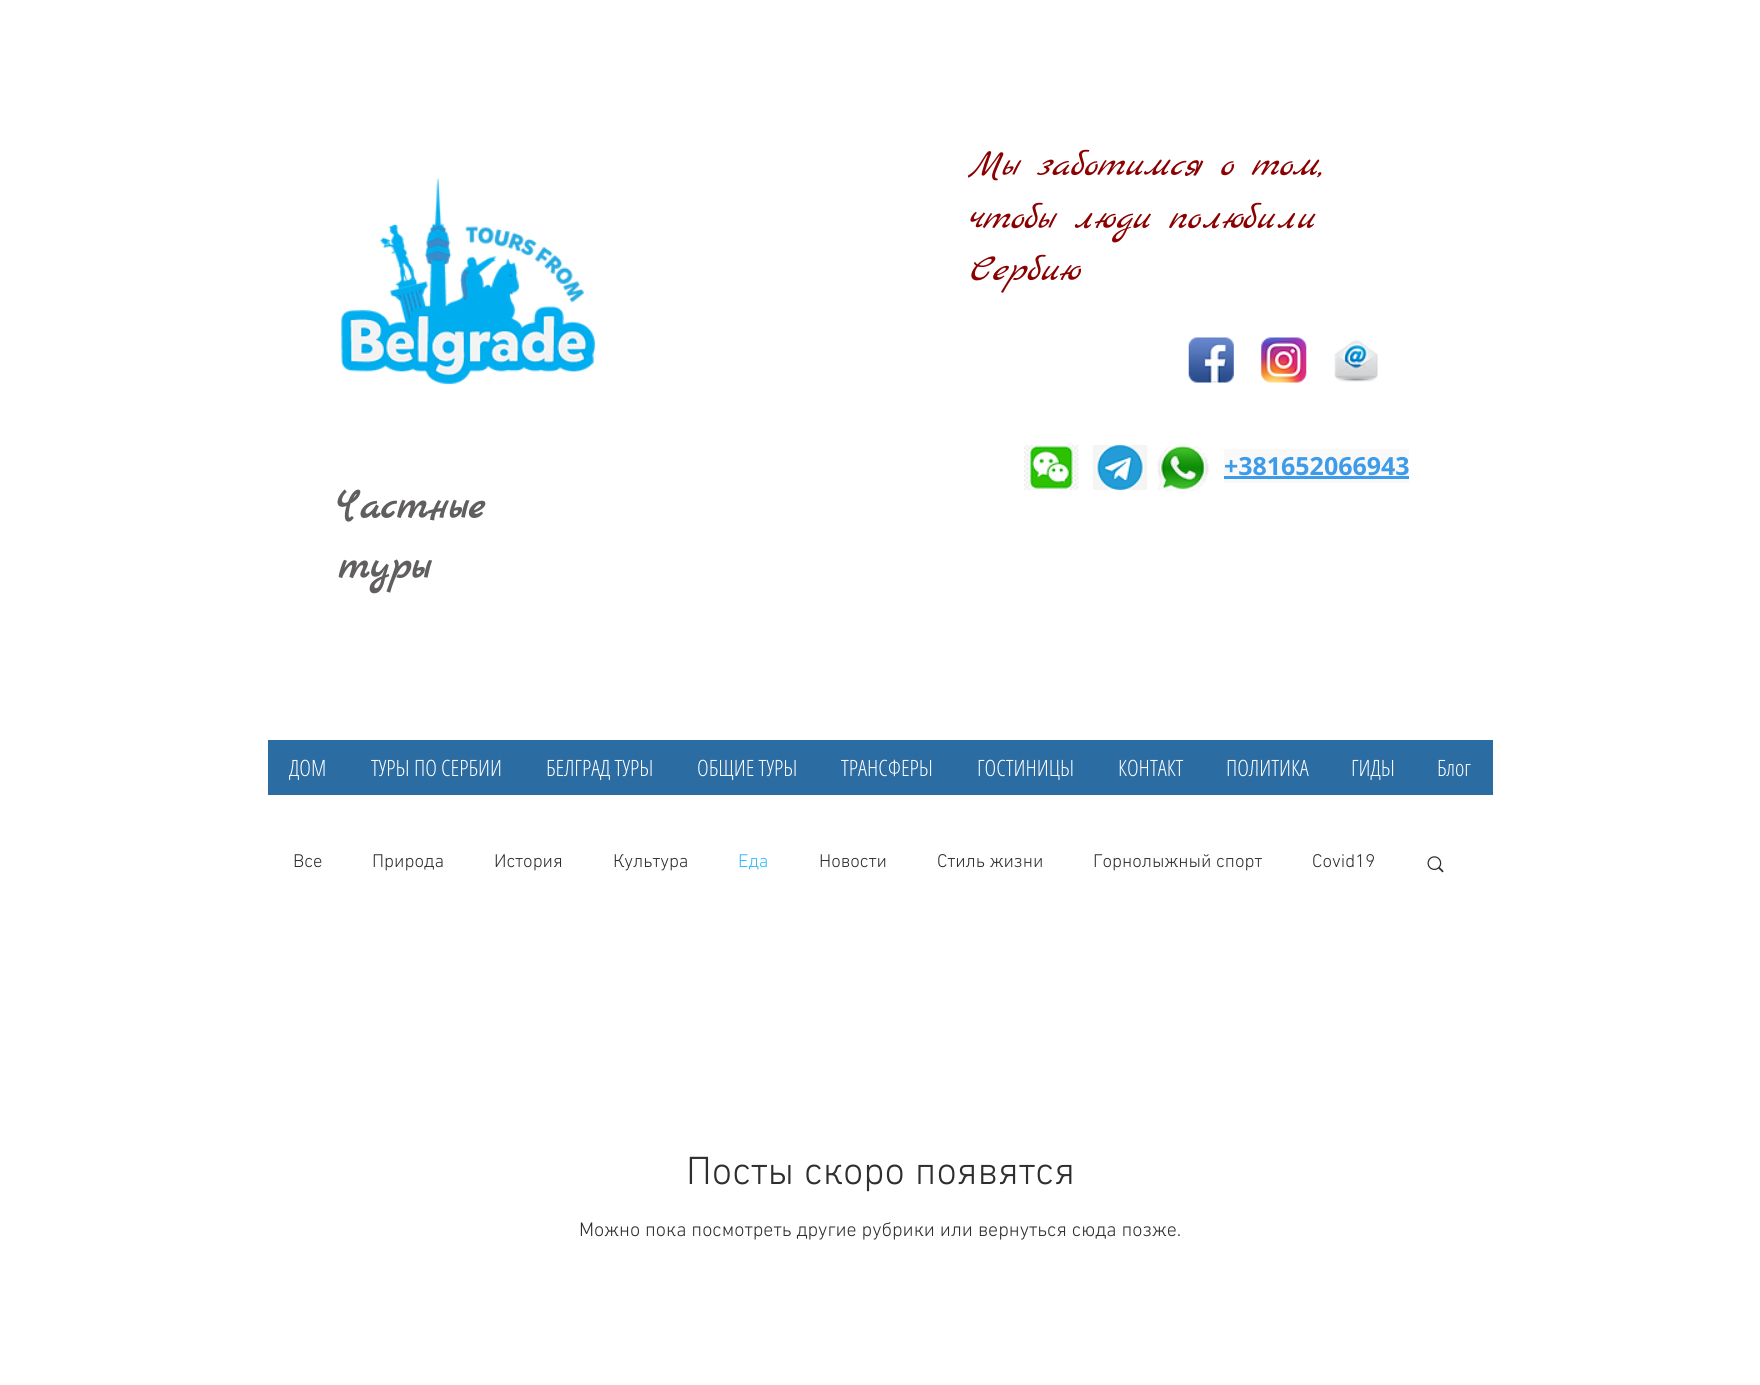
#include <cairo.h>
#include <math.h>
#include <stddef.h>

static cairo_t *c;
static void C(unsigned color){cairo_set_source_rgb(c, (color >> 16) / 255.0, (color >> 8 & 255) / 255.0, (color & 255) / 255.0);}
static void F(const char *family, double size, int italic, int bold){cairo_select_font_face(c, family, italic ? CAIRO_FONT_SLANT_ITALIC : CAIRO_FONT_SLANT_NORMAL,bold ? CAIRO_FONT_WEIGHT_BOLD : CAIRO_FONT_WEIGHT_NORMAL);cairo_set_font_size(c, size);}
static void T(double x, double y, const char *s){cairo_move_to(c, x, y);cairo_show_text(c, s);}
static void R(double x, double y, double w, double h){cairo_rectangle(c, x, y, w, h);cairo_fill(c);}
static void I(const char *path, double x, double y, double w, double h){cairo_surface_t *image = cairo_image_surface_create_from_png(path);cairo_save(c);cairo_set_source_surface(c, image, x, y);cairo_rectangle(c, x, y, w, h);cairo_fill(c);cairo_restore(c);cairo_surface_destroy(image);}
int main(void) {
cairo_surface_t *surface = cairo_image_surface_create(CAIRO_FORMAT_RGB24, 1760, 1385);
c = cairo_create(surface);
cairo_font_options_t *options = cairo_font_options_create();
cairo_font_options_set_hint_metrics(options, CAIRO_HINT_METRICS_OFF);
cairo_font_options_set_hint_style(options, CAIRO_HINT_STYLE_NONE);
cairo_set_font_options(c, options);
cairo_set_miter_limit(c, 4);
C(0xffffff);
cairo_paint(c);
I("1.png",341,178,255,207);
F("Marck Script",37.5,1,0);
C(0x8b0000);
T(968,175,"Мы заботимся о том,");
T(968,228,"чтобы люди полюбили");
T(968,280,"Сербию");
I("2.png",1188,337,46,46);
I("3.png",1261,337,46,46);
I("4.png",1334,340,44,42);
I("5.png",1024,445,55,45);
I("6.png",1092,445,56,45);
I("7.png",1157,446,52,45);
C(0xf9f9f9);
R(1224,449,185,34);
F("Open Sans",25,0,1);
C(0x3d9be9);
T(1224,475,"+381652066943");
R(1224,476,185,3);
F("Marck Script",42.5,0,1);
C(0x605e5e);
T(338,518,"Частные");
T(338,578,"туры");
C(0x2b6ca3);
R(268,740,1225,55);
F("Open Sans Condensed Light",22.5,0,0);
C(0xffffff);
T(289,776,"ДОМ");
T(371,776,"ТУРЫ ПО СЕРБИИ");
T(546,776,"БЕЛГРАД ТУРЫ");
T(697,776,"ОБЩИЕ ТУРЫ");
T(841,776,"ТРАНСФЕРЫ");
T(977,776,"ГОСТИНИЦЫ");
T(1118,776,"КОНТАКТ");
T(1226,776,"ПОЛИТИКА");
T(1351,776,"ГИДЫ");
T(1437,776,"Блог");
F("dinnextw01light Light",18.75,0,0);
C(0x2f2e2e);
T(293,867,"Все");
T(372,867,"Природа");
T(494,867,"История");
T(613,867,"Культура");
C(0x30bdff);
T(738,867,"Еда");
C(0x2f2e2e);
T(819,867,"Новости");
T(937,867,"Стиль жизни");
T(1093,867,"Горнолыжный спорт");
T(1312,867,"Covid19");
I("8.png",1427,856,17,17);
F("dinnextw01light Light",40,0,0);
T(686,1184,"Посты скоро появятся");
F("dinnextw01light Light",20,0,0);
T(579,1236,"Можно пока посмотреть другие рубрики или вернуться сюда позже.");
cairo_surface_write_to_png(surface, "o.png");
cairo_font_options_destroy(options);
cairo_destroy(c);
cairo_surface_destroy(surface);
return 0;
}
